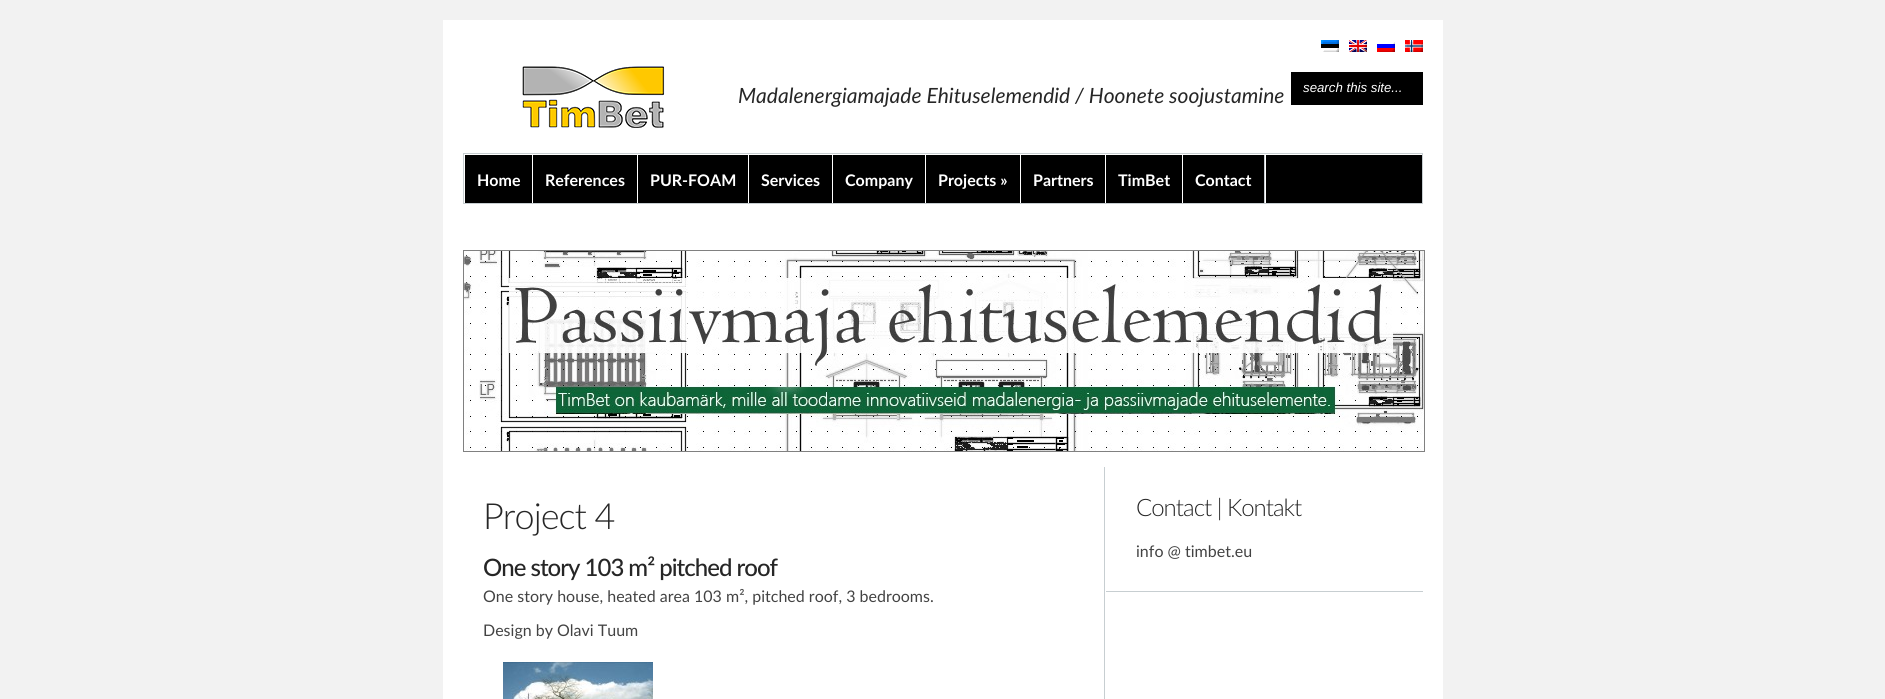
#include <cairo.h>
#include <math.h>
#include <stddef.h>

static cairo_t *c;
static void C(unsigned color){cairo_set_source_rgb(c, (color >> 16) / 255.0, (color >> 8 & 255) / 255.0, (color & 255) / 255.0);}
static void F(const char *family, double size, int italic, int bold){cairo_select_font_face(c, family, italic ? CAIRO_FONT_SLANT_ITALIC : CAIRO_FONT_SLANT_NORMAL,bold ? CAIRO_FONT_WEIGHT_BOLD : CAIRO_FONT_WEIGHT_NORMAL);cairo_set_font_size(c, size);}
static void T(double x, double y, const char *s){cairo_move_to(c, x, y);cairo_show_text(c, s);}
static void L(double x, double y, const char *s, double letter, double word){cairo_move_to(c, x, y);while (*s) {char ch[5] = {0};int n = 0;do ch[n++] = *s++; while ((*s & 0xC0) == 0x80);cairo_show_text(c, ch);cairo_rel_move_to(c, letter + word * (*ch == ' '), 0);}}
static void R(double x, double y, double w, double h){cairo_rectangle(c, x, y, w, h);cairo_fill(c);}
static void I(const char *path, double x, double y, double w, double h){cairo_surface_t *image = cairo_image_surface_create_from_png(path);cairo_save(c);cairo_set_source_surface(c, image, x, y);cairo_rectangle(c, x, y, w, h);cairo_fill(c);cairo_restore(c);cairo_surface_destroy(image);}
int main(void) {
cairo_surface_t *surface = cairo_image_surface_create(CAIRO_FORMAT_RGB24, 1885, 699);
c = cairo_create(surface);
cairo_font_options_t *options = cairo_font_options_create();
cairo_font_options_set_hint_metrics(options, CAIRO_HINT_METRICS_OFF);
cairo_font_options_set_hint_style(options, CAIRO_HINT_STYLE_NONE);
cairo_set_font_options(c, options);
cairo_set_miter_limit(c, 4);
C(0xf2f2f2);
cairo_paint(c);
C(0xffffff);
R(443,20,1000,679);
I("1.png",1321,40,18,12);
I("2.png",1349,40,18,12);
I("3.png",1377,42,18,10);
I("4.png",1405,40,18,12);
I("5.png",522,66,143,62);
F("Lato",21,1,0);
C(0x262626);
T(738,103,"Madalenergiamajade Ehituselemendid / Hoonete soojustamine");
C(0x000000);
R(1291,72,132,33);
F("Liberation Sans",13.25,1,0);
C(0xffffff);
T(1303,92,"search this site...");
C(0x000000);
R(465,155,957,48);
cairo_rectangle(c,463.5,153.5,959,50);
C(0xc7ced1);
cairo_set_line_width(c,1);
cairo_stroke(c);
F("Lato",16,0,1);
C(0xffffff);
T(477,186,"Home");
R(532,155,1,48);
T(545,186,"References");
R(637,155,1,48);
T(650,186,"PUR-FOAM");
R(748,155,1,48);
T(761,186,"Services");
R(832,155,1,48);
T(845,186,"Company");
R(925,155,1,48);
T(938,186,"Projects »");
R(1020,155,1,48);
T(1033,186,"Partners");
R(1105,155,1,48);
T(1118,186,"TimBet");
I("6.png",1264,155,2,48);
R(1182,155,1,48);
T(1195,186,"Contact");
cairo_rectangle(c,463.5,250.5,961,201);
C(0x808080);
cairo_stroke(c);
I("7.png",464,251,960,200);
C(0xc7ced1);
R(1104,467,1,232);
F("Lato Light",36,0,0);
C(0x262626);
L(483,529,"Project 4",-1,0);
F("Lato Medium",24,0,0);
L(483,576,"One story 103 m² pitched roof",-1,0);
F("Lato",16,0,0);
C(0x434343);
T(483,602,"One story house, heated area 103 m², pitched roof, 3 bedrooms.");
T(483,636,"Design by Olavi Tuum");
I("8.png",503,662,150,37);
C(0xc7ced1);
R(1106,591,317,1);
F("Lato Light",24,0,0);
C(0x262626);
L(1136,516,"Contact | Kontakt",-1,0);
F("Lato",16,0,0);
C(0x434343);
T(1136,557,"info @ timbet.eu");
cairo_surface_write_to_png(surface, "o.png");
cairo_font_options_destroy(options);
cairo_destroy(c);
cairo_surface_destroy(surface);
return 0;
}
